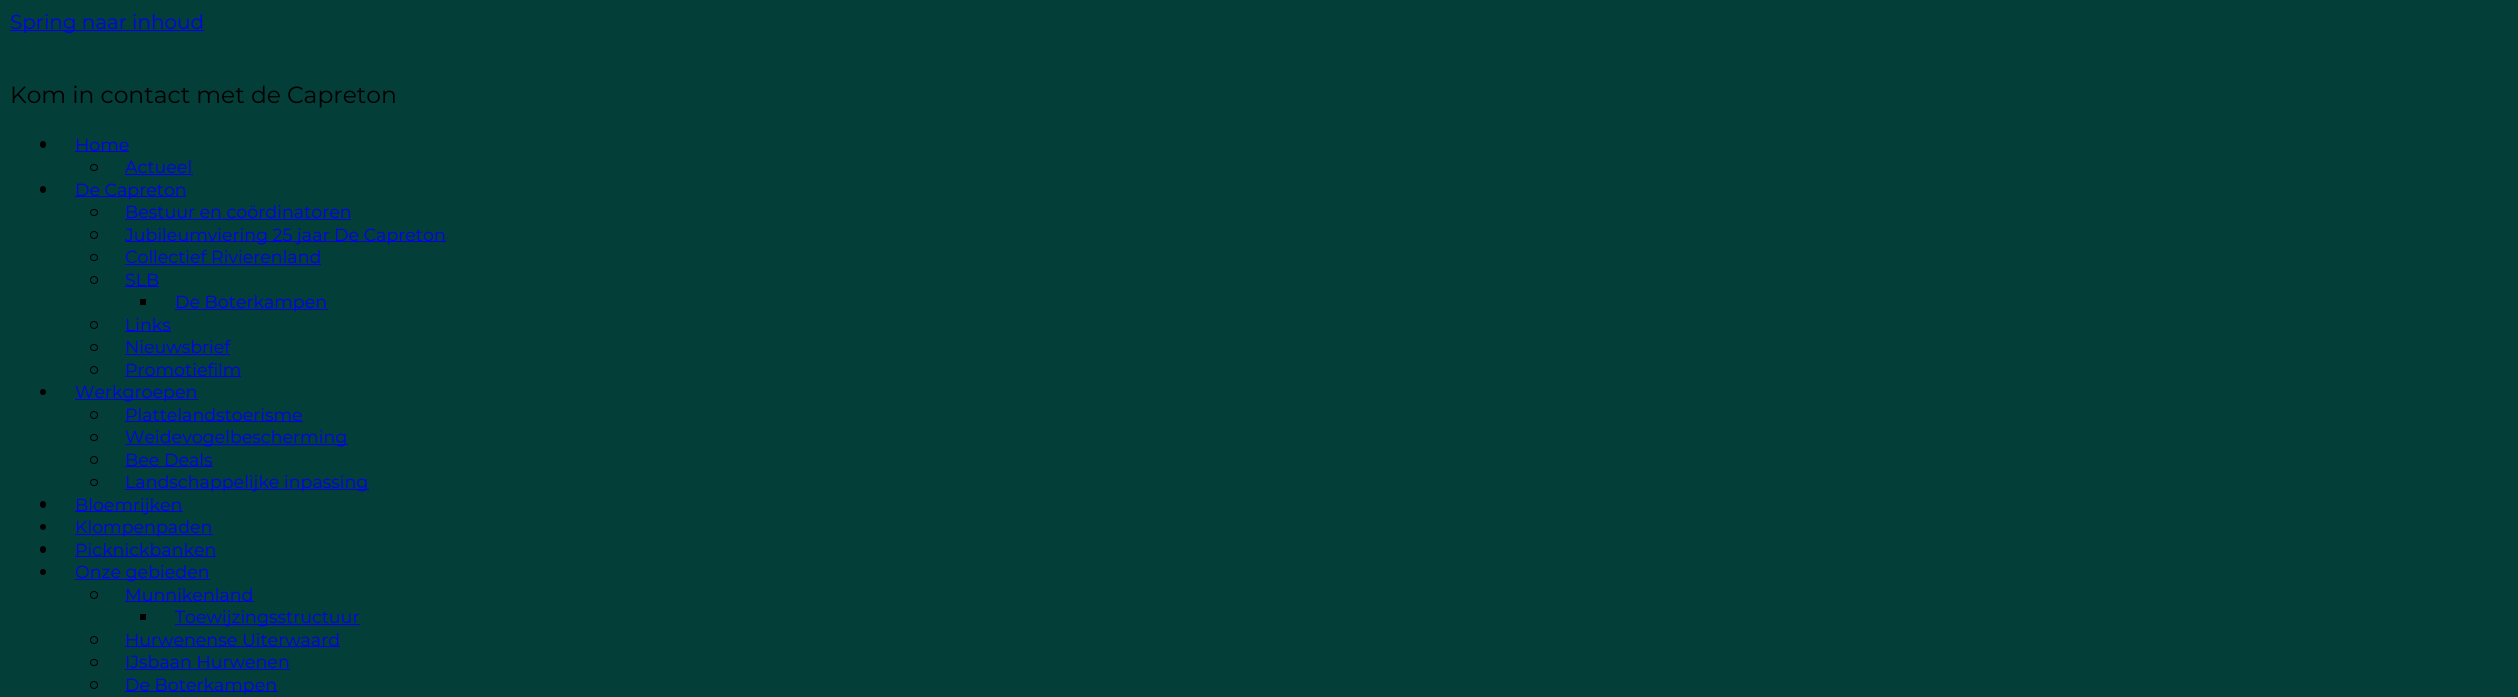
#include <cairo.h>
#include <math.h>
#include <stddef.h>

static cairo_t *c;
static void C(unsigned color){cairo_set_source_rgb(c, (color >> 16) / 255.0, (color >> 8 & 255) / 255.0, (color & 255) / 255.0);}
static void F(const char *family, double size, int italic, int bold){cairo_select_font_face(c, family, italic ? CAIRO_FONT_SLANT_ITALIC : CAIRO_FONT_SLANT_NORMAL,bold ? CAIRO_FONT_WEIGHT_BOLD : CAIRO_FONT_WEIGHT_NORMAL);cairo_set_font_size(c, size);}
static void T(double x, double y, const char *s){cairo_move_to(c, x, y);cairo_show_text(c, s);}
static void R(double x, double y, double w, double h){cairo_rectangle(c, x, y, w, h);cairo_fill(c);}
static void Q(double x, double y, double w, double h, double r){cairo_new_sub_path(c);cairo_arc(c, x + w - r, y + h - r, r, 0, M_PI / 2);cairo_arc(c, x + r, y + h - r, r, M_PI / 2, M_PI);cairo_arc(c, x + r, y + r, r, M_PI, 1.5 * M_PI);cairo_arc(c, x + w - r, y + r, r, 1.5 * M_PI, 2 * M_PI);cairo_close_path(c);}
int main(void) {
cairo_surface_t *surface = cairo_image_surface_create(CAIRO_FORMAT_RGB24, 2518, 697);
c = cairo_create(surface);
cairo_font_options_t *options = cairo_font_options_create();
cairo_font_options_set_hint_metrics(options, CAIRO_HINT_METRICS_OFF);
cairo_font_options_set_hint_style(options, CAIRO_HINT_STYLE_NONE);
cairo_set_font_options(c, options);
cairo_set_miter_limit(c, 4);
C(0x033e38);
cairo_paint(c);
C(0x0000ee);
R(10,30,194,1);
F("Montserrat Thin",20,0,0);
T(10,29,"Spring naar inhoud");
F("Montserrat Thin",23.4,0,0);
C(0x000000);
T(10,103,"Kom in contact met de Capreton");
Q(40,141,6,7,3);
cairo_fill(c);
C(0x0000ee);
R(75,151,54,1);
F("Montserrat Thin",17.5,0,0);
T(75,151,"Home");
Q(90.5,164.5,7,6,3);
C(0x000000);
cairo_set_line_width(c,1);
cairo_stroke(c);
C(0x0000ee);
T(125,173,"Actueel");
R(125,174,68,1);
C(0x000000);
Q(40,186,6,7,3);
cairo_fill(c);
C(0x0000ee);
R(75,196,111,1);
T(75,196,"De Capreton");
Q(90.5,209.5,7,6,3);
C(0x000000);
cairo_stroke(c);
C(0x0000ee);
T(125,218,"Bestuur en coördinatoren");
R(125,219,226,1);
cairo_new_path(c);
cairo_arc(c,94,235,3.5,0,2 * M_PI);
C(0x000000);
cairo_stroke(c);
C(0x0000ee);
R(125,241,321,1);
T(125,241,"Jubileumviering 25 jaar De Capreton");
Q(90.5,254.5,7,6,3);
C(0x000000);
cairo_stroke(c);
C(0x0000ee);
T(125,263,"Collectief Rivierenland");
R(125,264,196,1);
cairo_new_path(c);
cairo_arc(c,94,280,3.5,0,2 * M_PI);
C(0x000000);
cairo_stroke(c);
C(0x0000ee);
R(125,286,34,1);
T(125,286,"SLB");
C(0x000000);
R(140,299,6,6);
C(0x0000ee);
R(175,309,153,1);
T(175,308,"De Boterkampen");
cairo_new_path(c);
cairo_arc(c,94,325,3.5,0,2 * M_PI);
C(0x000000);
cairo_stroke(c);
C(0x0000ee);
R(125,331,46,1);
T(125,331,"Links");
Q(90.5,344.5,7,6,3);
C(0x000000);
cairo_stroke(c);
C(0x0000ee);
T(125,353,"Nieuwsbrief");
R(125,354,105,1);
cairo_new_path(c);
cairo_arc(c,94,370,3.5,0,2 * M_PI);
C(0x000000);
cairo_stroke(c);
C(0x0000ee);
R(125,376,116,1);
T(125,376,"Promotiefilm");
C(0x000000);
cairo_new_path(c);
cairo_arc(c,43,392,3,0,2 * M_PI);
cairo_fill(c);
C(0x0000ee);
R(75,399,123,1);
T(75,398,"Werkgroepen");
cairo_new_path(c);
cairo_arc(c,94,415,3.5,0,2 * M_PI);
C(0x000000);
cairo_stroke(c);
C(0x0000ee);
R(125,421,178,1);
T(125,421,"Plattelandstoerisme");
Q(90.5,434.5,7,6,3);
C(0x000000);
cairo_stroke(c);
C(0x0000ee);
R(125,444,223,1);
T(125,443,"Weidevogelbescherming");
cairo_new_path(c);
cairo_arc(c,94,460,3.5,0,2 * M_PI);
C(0x000000);
cairo_stroke(c);
C(0x0000ee);
R(125,466,88,1);
T(125,466,"Bee Deals");
Q(90.5,479.5,7,6,3);
C(0x000000);
cairo_stroke(c);
C(0x0000ee);
R(125,489,244,1);
T(125,488,"Landschappelijke inpassing");
C(0x000000);
Q(40,501,6,7,3);
cairo_fill(c);
C(0x0000ee);
R(75,511,108,1);
T(75,511,"Bloemrijken");
C(0x000000);
cairo_new_path(c);
cairo_arc(c,43,527,3,0,2 * M_PI);
cairo_fill(c);
C(0x0000ee);
R(75,534,138,1);
T(75,533,"Klompenpaden");
C(0x000000);
Q(40,546,6,7,3);
cairo_fill(c);
C(0x0000ee);
R(75,556,141,1);
T(75,556,"Picknickbanken");
C(0x000000);
cairo_new_path(c);
cairo_arc(c,43,572,3,0,2 * M_PI);
cairo_fill(c);
C(0x0000ee);
R(75,579,135,1);
T(75,578,"Onze gebieden");
cairo_new_path(c);
cairo_arc(c,94,595,3.5,0,2 * M_PI);
C(0x000000);
cairo_stroke(c);
C(0x0000ee);
R(125,601,129,1);
T(125,601,"Munnikenland");
C(0x000000);
R(140,614,6,6);
C(0x0000ee);
R(175,624,185,1);
T(175,623,"Toewijzingsstructuur");
cairo_new_path(c);
cairo_arc(c,94,640,3.5,0,2 * M_PI);
C(0x000000);
cairo_stroke(c);
C(0x0000ee);
R(125,646,215,1);
T(125,646,"Hurwenense Uiterwaard");
Q(90.5,659.5,7,6,3);
C(0x000000);
cairo_stroke(c);
C(0x0000ee);
T(125,668,"IJsbaan Hurwenen");
R(125,669,165,1);
cairo_new_path(c);
cairo_arc(c,94,685,3.5,0,2 * M_PI);
C(0x000000);
cairo_stroke(c);
C(0x0000ee);
R(125,691,153,1);
T(125,691,"De Boterkampen");
cairo_surface_write_to_png(surface, "o.png");
cairo_font_options_destroy(options);
cairo_destroy(c);
cairo_surface_destroy(surface);
return 0;
}
